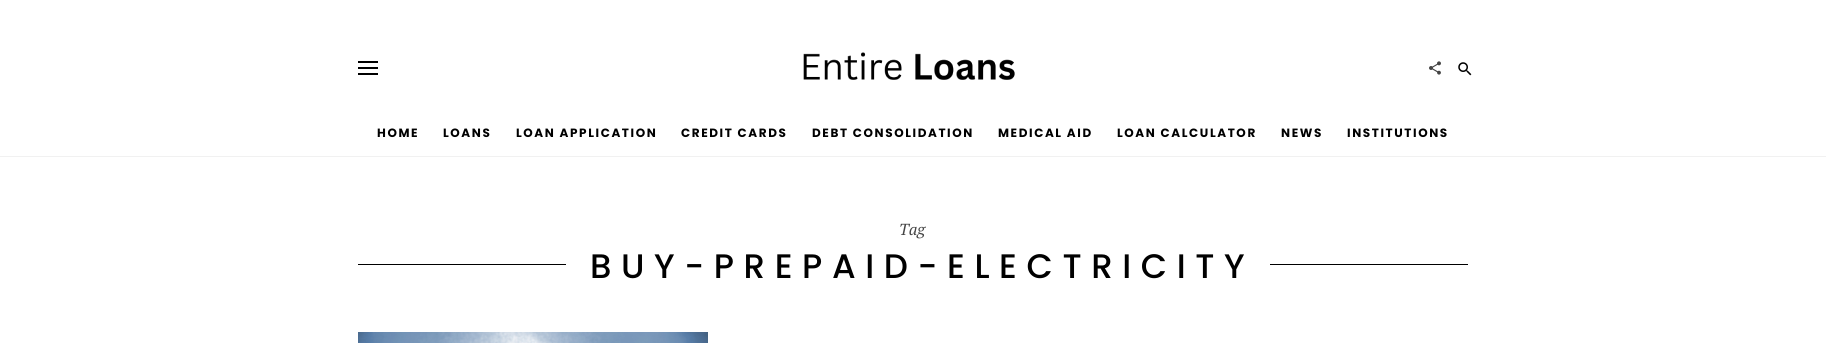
#include <cairo.h>
#include <math.h>
#include <stddef.h>

static cairo_t *c;
static void C(unsigned color){cairo_set_source_rgb(c, (color >> 16) / 255.0, (color >> 8 & 255) / 255.0, (color & 255) / 255.0);}
static void F(const char *family, double size, int italic, int bold){cairo_select_font_face(c, family, italic ? CAIRO_FONT_SLANT_ITALIC : CAIRO_FONT_SLANT_NORMAL,bold ? CAIRO_FONT_WEIGHT_BOLD : CAIRO_FONT_WEIGHT_NORMAL);cairo_set_font_size(c, size);}
static void T(double x, double y, const char *s){cairo_move_to(c, x, y);cairo_show_text(c, s);}
static void L(double x, double y, const char *s, double letter, double word){cairo_move_to(c, x, y);while (*s) {char ch[5] = {0};int n = 0;do ch[n++] = *s++; while ((*s & 0xC0) == 0x80);cairo_show_text(c, ch);cairo_rel_move_to(c, letter + word * (*ch == ' '), 0);}}
static void R(double x, double y, double w, double h){cairo_rectangle(c, x, y, w, h);cairo_fill(c);}
static void I(const char *path, double x, double y, double w, double h){cairo_surface_t *image = cairo_image_surface_create_from_png(path);cairo_save(c);cairo_set_source_surface(c, image, x, y);cairo_rectangle(c, x, y, w, h);cairo_fill(c);cairo_restore(c);cairo_surface_destroy(image);}
int main(void) {
cairo_surface_t *surface = cairo_image_surface_create(CAIRO_FORMAT_RGB24, 1826, 343);
c = cairo_create(surface);
cairo_font_options_t *options = cairo_font_options_create();
cairo_font_options_set_hint_metrics(options, CAIRO_HINT_METRICS_OFF);
cairo_font_options_set_hint_style(options, CAIRO_HINT_STYLE_NONE);
cairo_set_font_options(c, options);
cairo_set_miter_limit(c, 4);
C(0xffffff);
cairo_paint(c);
C(0x000000);
R(358,67,20,2);
R(358,61,20,2);
R(358,73,20,2);
I("1.png",803,52,212,28);
I("2.png",1429,61,12,14);
I("3.png",1458,62,14,14);
F("Poppins",12,0,1);
L(377,137,"HOME",1.6,0);
L(443,137,"LOANS",1.6,0);
L(516,137,"LOAN APPLICATION",1.6,0);
L(681,137,"CREDIT CARDS",1.6,0);
L(812,137,"DEBT CONSOLIDATION",1.6,0);
L(998,137,"MEDICAL AID",1.6,0);
L(1117,137,"LOAN CALCULATOR",1.6,0);
L(1281,137,"NEWS",1.6,0);
L(1347,137,"INSTITUTIONS",1.6,0);
C(0xf1f1f1);
R(0,156,1826,1);
F("PT Serif",16,1,0);
C(0x444444);
T(899,235,"Tag");
C(0x000000);
R(358,264,1110,1);
C(0xffffff);
R(566,264,704,1);
F("Poppins Medium",34,0,0);
C(0x000000);
L(590,278,"BUY-PREPAID-ELECTRICITY",9.6,0);
I("4.png",358,332,350,11);
cairo_surface_write_to_png(surface, "o.png");
cairo_font_options_destroy(options);
cairo_destroy(c);
cairo_surface_destroy(surface);
return 0;
}
